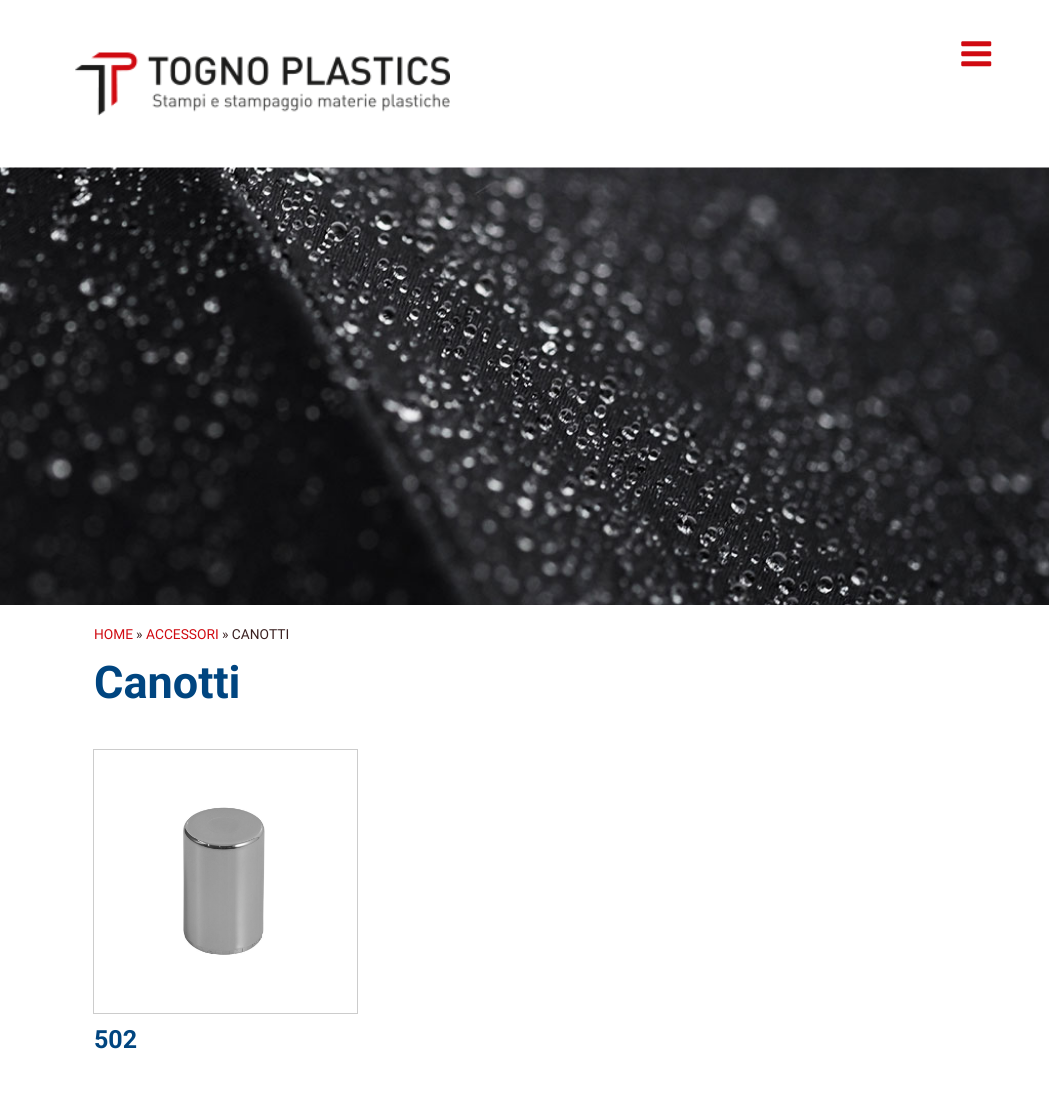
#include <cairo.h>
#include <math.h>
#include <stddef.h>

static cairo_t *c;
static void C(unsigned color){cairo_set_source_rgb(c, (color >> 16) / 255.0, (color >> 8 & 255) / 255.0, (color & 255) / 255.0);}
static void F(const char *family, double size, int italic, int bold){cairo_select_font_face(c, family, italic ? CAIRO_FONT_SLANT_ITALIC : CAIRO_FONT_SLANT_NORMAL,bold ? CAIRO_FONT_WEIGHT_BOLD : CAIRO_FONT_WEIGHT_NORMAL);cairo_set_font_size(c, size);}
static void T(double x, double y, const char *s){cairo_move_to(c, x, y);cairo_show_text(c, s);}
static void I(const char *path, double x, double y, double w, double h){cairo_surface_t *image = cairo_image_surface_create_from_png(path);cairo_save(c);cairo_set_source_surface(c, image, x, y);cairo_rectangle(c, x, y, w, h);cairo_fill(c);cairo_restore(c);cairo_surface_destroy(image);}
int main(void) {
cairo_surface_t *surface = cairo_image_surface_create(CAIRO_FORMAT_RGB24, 1049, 1116);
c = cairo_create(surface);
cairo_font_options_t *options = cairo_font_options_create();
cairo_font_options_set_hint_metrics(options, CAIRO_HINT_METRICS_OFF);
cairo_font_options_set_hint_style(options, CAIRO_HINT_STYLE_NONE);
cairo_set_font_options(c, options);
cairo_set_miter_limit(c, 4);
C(0xffffff);
cairo_paint(c);
I("1.png",75,52,375,64);
I("2.png",961,41,31,26);
I("3.png",0,167,1049,438);
F("Roboto",13.75,0,0);
C(0xd00a11);
T(94,639,"HOME");
C(0x3a2020);
T(136,639,"»");
C(0xd00a11);
T(146,639,"ACCESSORI");
C(0x3a2020);
T(222,639,"» CANOTTI");
F("Roboto",45,0,1);
C(0x004580);
T(94,698,"Canotti");
I("4.png",183,807,82,148);
cairo_rectangle(c,93.5,749.5,264,264);
C(0xcccccc);
cairo_set_line_width(c,1);
cairo_stroke(c);
F("Roboto",25,0,1);
C(0x004580);
T(94,1048,"502");
cairo_surface_write_to_png(surface, "o.png");
cairo_font_options_destroy(options);
cairo_destroy(c);
cairo_surface_destroy(surface);
return 0;
}
